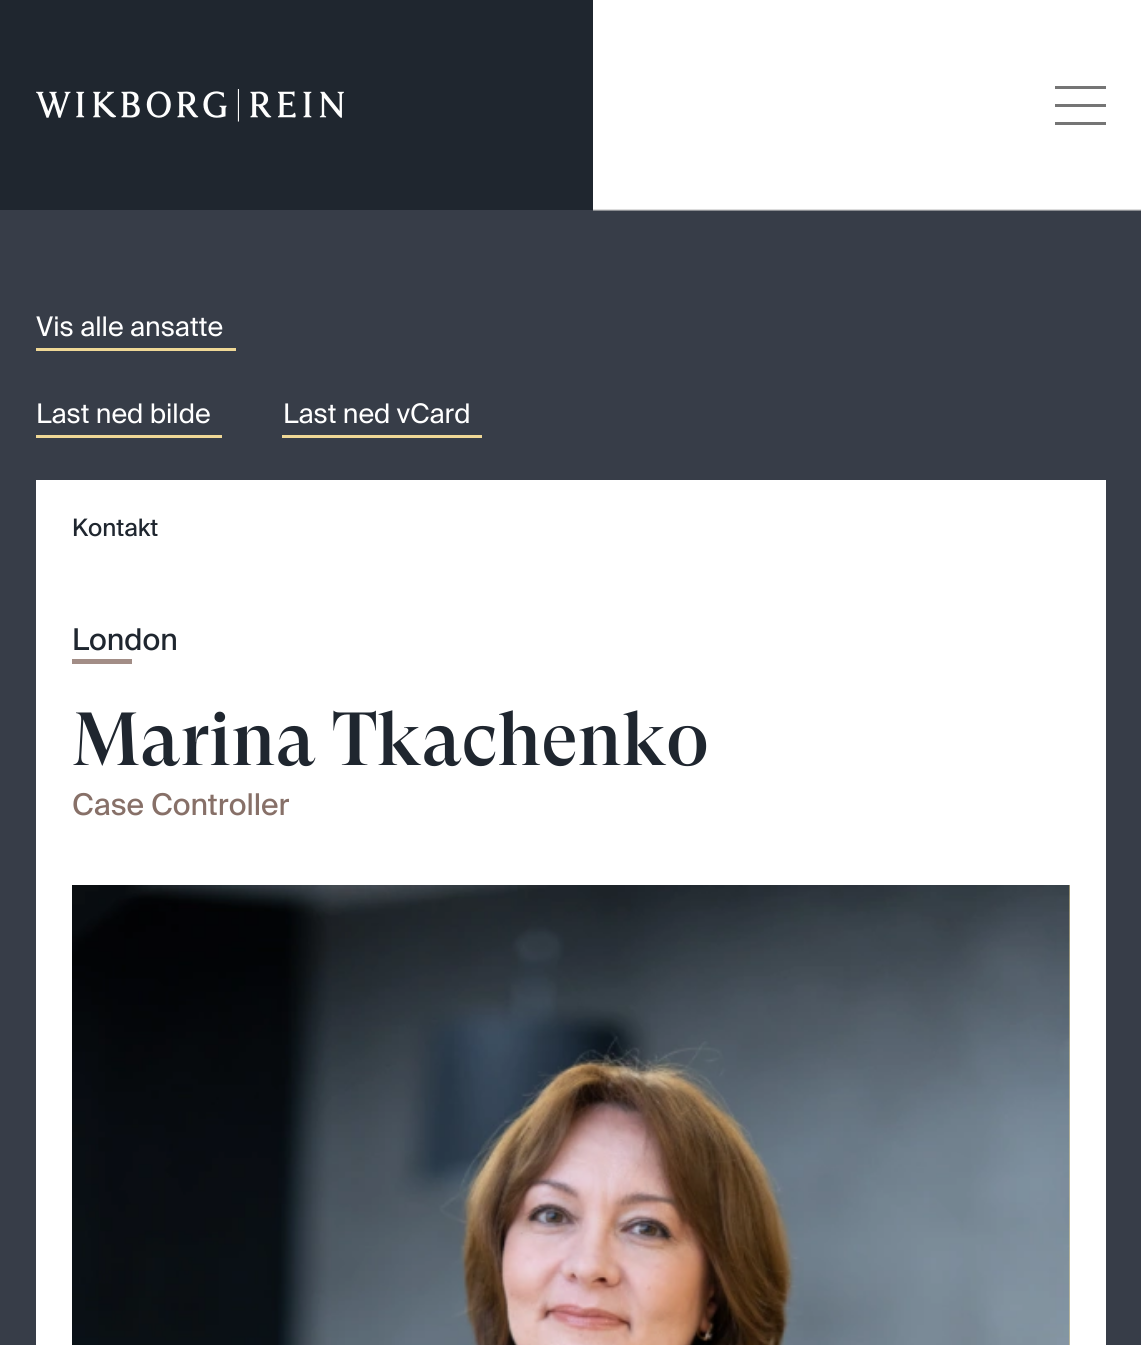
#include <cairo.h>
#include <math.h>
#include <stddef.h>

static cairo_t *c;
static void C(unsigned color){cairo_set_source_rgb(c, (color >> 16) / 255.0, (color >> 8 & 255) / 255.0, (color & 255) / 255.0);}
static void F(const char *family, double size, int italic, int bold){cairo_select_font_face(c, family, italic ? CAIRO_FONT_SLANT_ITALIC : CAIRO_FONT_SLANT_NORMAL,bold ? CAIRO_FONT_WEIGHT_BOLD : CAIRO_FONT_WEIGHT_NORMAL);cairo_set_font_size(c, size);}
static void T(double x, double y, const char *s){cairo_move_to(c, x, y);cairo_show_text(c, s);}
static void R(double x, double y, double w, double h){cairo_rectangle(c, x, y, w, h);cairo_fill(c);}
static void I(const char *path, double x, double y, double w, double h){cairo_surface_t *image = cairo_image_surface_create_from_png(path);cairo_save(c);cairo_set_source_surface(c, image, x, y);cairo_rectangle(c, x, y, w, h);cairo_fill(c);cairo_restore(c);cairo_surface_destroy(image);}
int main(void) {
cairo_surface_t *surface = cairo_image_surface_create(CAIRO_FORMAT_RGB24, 1141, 1345);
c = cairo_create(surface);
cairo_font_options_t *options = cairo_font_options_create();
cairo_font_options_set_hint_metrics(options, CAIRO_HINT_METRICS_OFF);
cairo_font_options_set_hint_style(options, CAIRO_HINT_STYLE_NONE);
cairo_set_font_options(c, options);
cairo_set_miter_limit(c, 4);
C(0x373d48);
cairo_paint(c);
C(0x1f262f);
R(0,0,593,210);
I("1.png",36,89,308,33);
C(0xffffff);
R(593,0,548,209);
C(0xdcdcdc);
R(593,209,548,1);
C(0x757575);
R(1055,86,51,3);
R(1055,104,51,3);
R(1055,122,51,3);
C(0x8c8e92);
R(593,210,548,1);
C(0xefd896);
R(36,348,200,3);
F("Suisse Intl",27,0,0);
C(0xffffff);
T(36,336,"Vis alle ansatte");
C(0xefd896);
R(36,435,186,3);
C(0xffffff);
T(36,423,"Last ned bilde");
C(0xefd896);
R(282,435,200,3);
C(0xffffff);
T(283,423,"Last ned vCard");
R(36,480,1070,865);
F("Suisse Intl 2",24,0,0);
C(0x1f262f);
T(72,536,"Kontakt");
F("Suisse Intl 2",30,0,0);
T(72,650,"London");
C(0xa28d86);
R(72,659,60,5);
F("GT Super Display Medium",75,0,0);
C(0x1f262f);
T(72,765,"Marina Tkachenko");
F("Suisse Intl 2",30,0,0);
C(0x877068);
T(72,815,"Case Controller");
C(0xefd896);
R(1069,885,1,460);
I("2.png",72,885,998,460);
cairo_surface_write_to_png(surface, "o.png");
cairo_font_options_destroy(options);
cairo_destroy(c);
cairo_surface_destroy(surface);
return 0;
}
